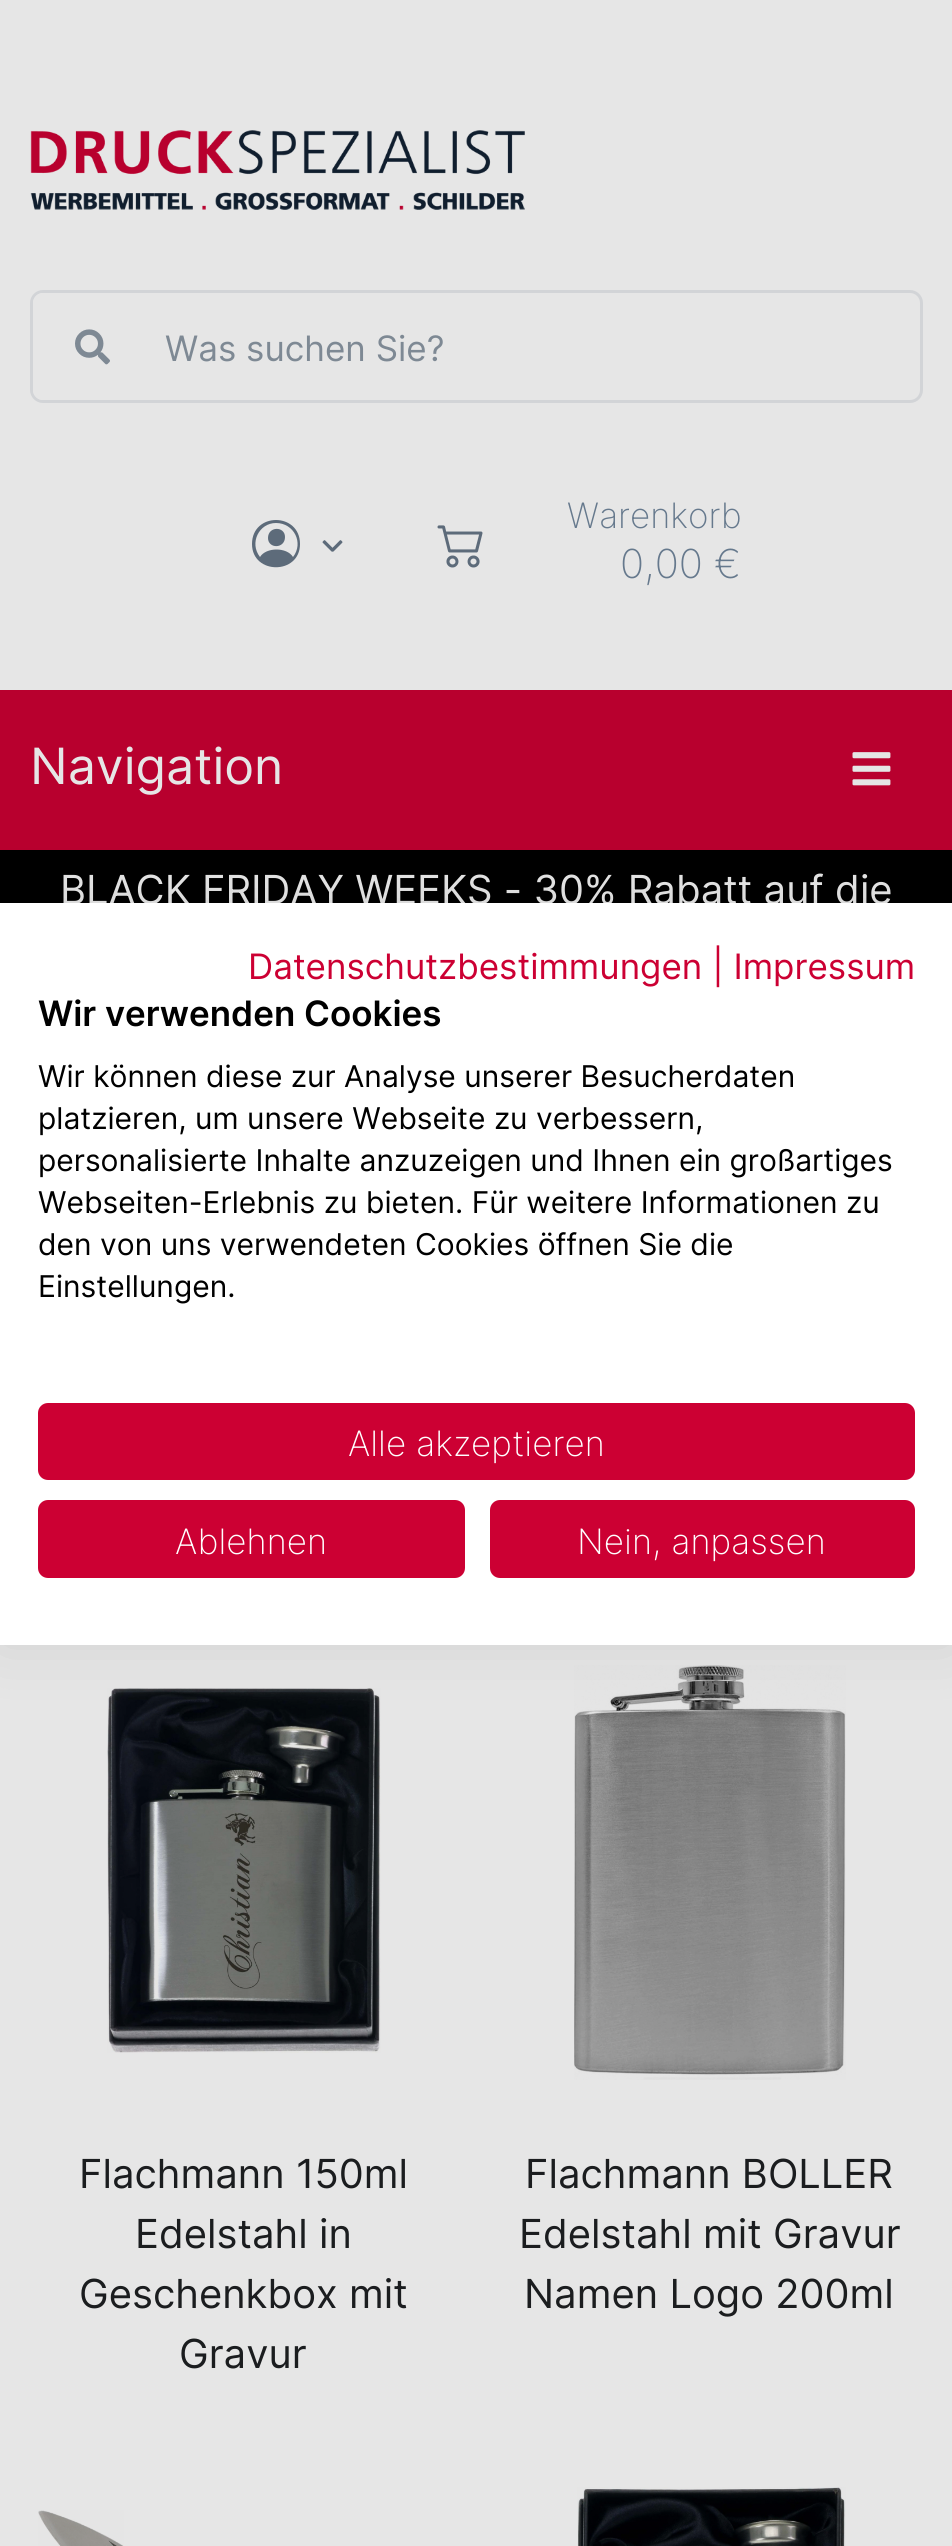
#include <cairo.h>
#include <math.h>
#include <stddef.h>

static cairo_t *c;
static void C(unsigned color){cairo_set_source_rgb(c, (color >> 16) / 255.0, (color >> 8 & 255) / 255.0, (color & 255) / 255.0);}
static void F(const char *family, double size, int italic, int bold){cairo_select_font_face(c, family, italic ? CAIRO_FONT_SLANT_ITALIC : CAIRO_FONT_SLANT_NORMAL,bold ? CAIRO_FONT_WEIGHT_BOLD : CAIRO_FONT_WEIGHT_NORMAL);cairo_set_font_size(c, size);}
static void T(double x, double y, const char *s){cairo_move_to(c, x, y);cairo_show_text(c, s);}
static void R(double x, double y, double w, double h){cairo_rectangle(c, x, y, w, h);cairo_fill(c);}
static void Q(double x, double y, double w, double h, double r){cairo_new_sub_path(c);cairo_arc(c, x + w - r, y + h - r, r, 0, M_PI / 2);cairo_arc(c, x + r, y + h - r, r, M_PI / 2, M_PI);cairo_arc(c, x + r, y + r, r, M_PI, 1.5 * M_PI);cairo_arc(c, x + w - r, y + r, r, 1.5 * M_PI, 2 * M_PI);cairo_close_path(c);}
static void S(double x, double y, double w, double h, double r, double blur, double alpha){cairo_push_group_with_content(c, CAIRO_CONTENT_ALPHA);cairo_set_operator(c, CAIRO_OPERATOR_SOURCE);for (int i = 15; i >= -15 && fmin(w, h) + blur * i / 3 > 0; i -= 2) {double e = blur * i / 6;cairo_set_source_rgba(c, 0, 0, 0, alpha * erfc((i - 1) / 8.5) / 2);Q(x - e, y - e, w + 2 * e, h + 2 * e, fmax(0, fmin(r + e + blur * .6, fmin(w, h) / 2 + e)));cairo_fill(c);}cairo_pattern_t *soft = cairo_pop_group(c);cairo_mask(c, soft);cairo_pattern_destroy(soft);}
static void I(const char *path, double x, double y, double w, double h){cairo_surface_t *image = cairo_image_surface_create_from_png(path);cairo_save(c);cairo_set_source_surface(c, image, x, y);cairo_rectangle(c, x, y, w, h);cairo_fill(c);cairo_restore(c);cairo_surface_destroy(image);}
int main(void) {
cairo_surface_t *surface = cairo_image_surface_create(CAIRO_FORMAT_RGB24, 952, 2546);
c = cairo_create(surface);
cairo_font_options_t *options = cairo_font_options_create();
cairo_font_options_set_hint_metrics(options, CAIRO_HINT_METRICS_OFF);
cairo_font_options_set_hint_style(options, CAIRO_HINT_STYLE_NONE);
cairo_set_font_options(c, options);
cairo_set_miter_limit(c, 4);
C(0xe6e6e6);
cairo_paint(c);
I("1.png",30,130,495,80);
Q(31.5,291.5,890,110,11.5);
C(0xd2d4d7);
cairo_set_line_width(c,3);
cairo_stroke(c);
cairo_save(c);
Q(33,293,887,107,10);
cairo_clip(c);
C(0xe6e6e6);
cairo_new_path(c);
cairo_move_to(c,43,293);
cairo_line_to(c,907,293);
cairo_curve_to(c,914,293,920,299,920,306);
cairo_line_to(c,920,387);
cairo_curve_to(c,920,394,914,400,907,400);
cairo_line_to(c,43,400);
cairo_curve_to(c,37.5,400,33,395.5,33,390);
cairo_line_to(c,33,303);
cairo_curve_to(c,33,297.5,37.5,293,43,293);
cairo_close_path(c);
cairo_fill(c);
cairo_restore(c);
I("2.png",75,329,35,36);
F("Inter",35,0,0);
C(0x7e8994);
T(165,361,"Was suchen Sie?");
C(0x5d6b7a);
cairo_new_path(c);
cairo_move_to(c,285,537);
cairo_curve_to(c,285,549,268,549,268,538);
cairo_curve_to(c,268,526,285,526,285,537);
cairo_close_path(c);
cairo_move_to(c,252,544);
cairo_curve_to(c,252,512,300,512,300,544);
cairo_curve_to(c,300,575,252,575,252,544);
cairo_close_path(c);
cairo_move_to(c,276,523);
cairo_curve_to(c,259,523,249,543,260,557);
cairo_curve_to(c,266,547,287,547,293,557);
cairo_curve_to(c,304,543,294,523,276,523);
cairo_close_path(c);
cairo_fill(c);
I("3.png",322,540,21,12);
I("4.png",437,525,46,43);
F("Inter ExtraLight",35,0,0);
C(0x66798d);
T(567,528,"Warenkorb");
F("Inter ExtraLight",40,0,0);
T(620,578,"0,00 €");
C(0xb8002e);
R(0,690,952,160);
F("Inter",50,0,0);
C(0xe6e6e6);
T(30,784,"Navigation");
I("5.png",852,752,39,34);
C(0x000000);
R(0,850,952,53);
F("Inter",40,0,0);
C(0xe6e6e6);
T(60,904,"BLACK FRIDAY WEEKS - 30% Rabatt auf die");
I("6.png",107,1688,274,365);
I("7.png",574,1665,272,415);
C(0x000000);
S(0,903,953,742,0,30,.1);
C(0xffffff);
R(0,903,952,742);
F("Inter",35,0,0);
C(0xcc0033);
T(248,979,"Datenschutzbestimmungen | Impressum");
F("Inter SemiBold",35,0,0);
C(0x000000);
T(38,1026,"Wir verwenden Cookies");
F("Inter",30,0,0);
T(38,1087,"Wir können diese zur Analyse unserer Besucherdaten");
T(38,1129,"platzieren, um unsere Webseite zu verbessern,");
T(38,1171,"personalisierte Inhalte anzuzeigen und Ihnen ein großartiges");
T(38,1213,"Webseiten-Erlebnis zu bieten. Für weitere Informationen zu");
T(38,1255,"den von uns verwendeten Cookies öffnen Sie die");
T(38,1297,"Einstellungen.");
C(0xcc0033);
Q(39.5,1404.5,874,74,8.5);
cairo_fill_preserve(c);
cairo_stroke(c);
F("Inter ExtraLight",35,0,0);
C(0xffffff);
T(348,1456,"Alle akzeptieren");
C(0xcc0033);
Q(39.5,1501.5,424,75,8.5);
cairo_fill_preserve(c);
cairo_stroke(c);
C(0xffffff);
T(175,1554,"Ablehnen");
C(0xcc0033);
Q(491.5,1501.5,422,75,8.5);
cairo_fill_preserve(c);
cairo_stroke(c);
C(0xffffff);
T(577,1554,"Nein, anpassen");
F("Inter",40,0,0);
C(0x1b1d1f);
T(79,2188,"Flachmann 150ml");
T(135,2248,"Edelstahl in");
T(79,2308,"Geschenkbox mit");
T(179,2368,"Gravur");
T(525,2188,"Flachmann BOLLER");
T(519,2248,"Edelstahl mit Gravur");
T(524,2308,"Namen Logo 200ml");
I("8.png",38,2510,86,36);
I("9.png",577,2487,269,59);
cairo_surface_write_to_png(surface, "o.png");
cairo_font_options_destroy(options);
cairo_destroy(c);
cairo_surface_destroy(surface);
return 0;
}
